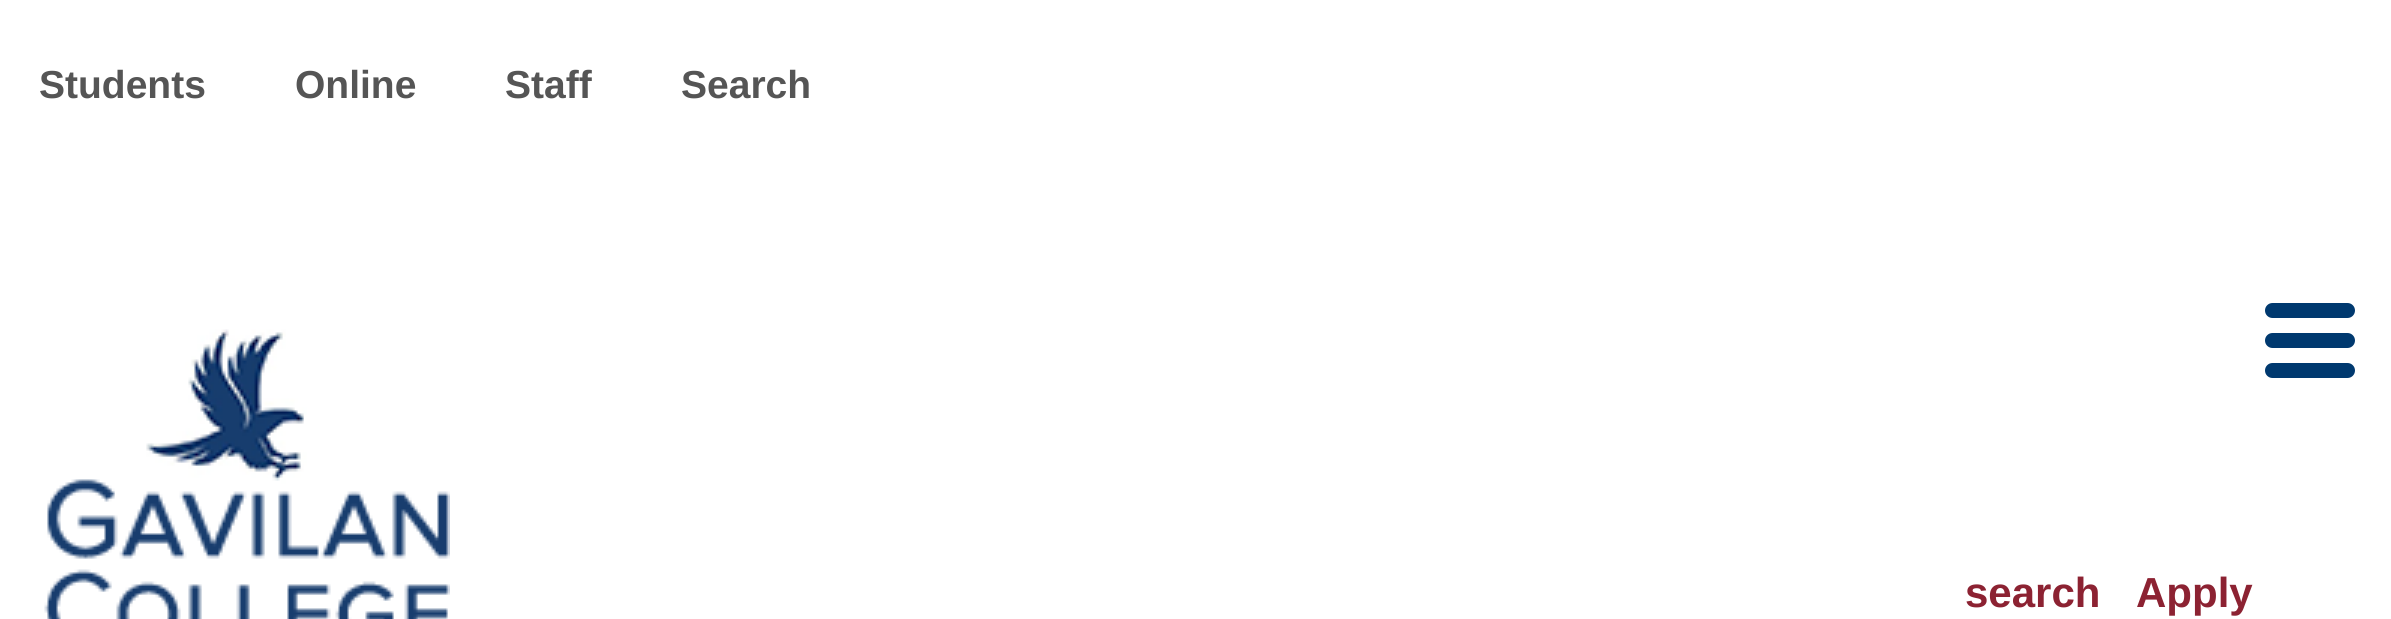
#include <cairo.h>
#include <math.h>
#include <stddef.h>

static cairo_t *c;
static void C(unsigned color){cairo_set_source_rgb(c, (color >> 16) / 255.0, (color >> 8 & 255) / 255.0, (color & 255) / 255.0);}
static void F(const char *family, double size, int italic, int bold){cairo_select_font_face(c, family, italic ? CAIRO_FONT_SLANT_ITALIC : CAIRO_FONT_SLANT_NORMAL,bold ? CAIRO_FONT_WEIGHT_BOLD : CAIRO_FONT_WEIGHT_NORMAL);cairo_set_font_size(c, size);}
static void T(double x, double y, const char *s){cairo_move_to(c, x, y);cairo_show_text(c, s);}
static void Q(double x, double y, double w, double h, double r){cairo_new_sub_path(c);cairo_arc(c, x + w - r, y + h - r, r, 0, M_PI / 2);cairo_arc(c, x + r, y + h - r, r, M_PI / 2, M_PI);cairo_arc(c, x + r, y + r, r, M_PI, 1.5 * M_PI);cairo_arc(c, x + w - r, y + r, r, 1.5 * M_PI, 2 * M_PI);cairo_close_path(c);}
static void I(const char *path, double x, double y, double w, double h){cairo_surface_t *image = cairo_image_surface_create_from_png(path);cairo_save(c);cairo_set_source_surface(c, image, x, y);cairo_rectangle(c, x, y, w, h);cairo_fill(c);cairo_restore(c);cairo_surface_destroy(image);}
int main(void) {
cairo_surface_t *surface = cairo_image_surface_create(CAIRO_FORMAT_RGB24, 2391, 619);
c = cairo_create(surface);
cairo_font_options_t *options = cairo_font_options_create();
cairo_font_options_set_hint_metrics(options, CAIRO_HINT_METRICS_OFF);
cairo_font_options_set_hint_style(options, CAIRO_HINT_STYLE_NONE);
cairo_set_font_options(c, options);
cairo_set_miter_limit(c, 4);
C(0xffffff);
cairo_paint(c);
F("Arimo",39,0,1);
C(0x555555);
T(39,98,"Students");
T(295,98,"Online");
T(505,98,"Staff");
T(681,98,"Search");
I("1.png",44,329,406,290);
F("Arimo",42,0,1);
C(0x8c2232);
T(1965,607,"search");
T(2136,607,"Apply");
C(0x00396f);
Q(2265,303,90,15,7.5);
cairo_fill(c);
Q(2265,333,90,15,7.5);
cairo_fill(c);
Q(2265,363,90,15,7.5);
cairo_fill(c);
cairo_surface_write_to_png(surface, "o.png");
cairo_font_options_destroy(options);
cairo_destroy(c);
cairo_surface_destroy(surface);
return 0;
}
